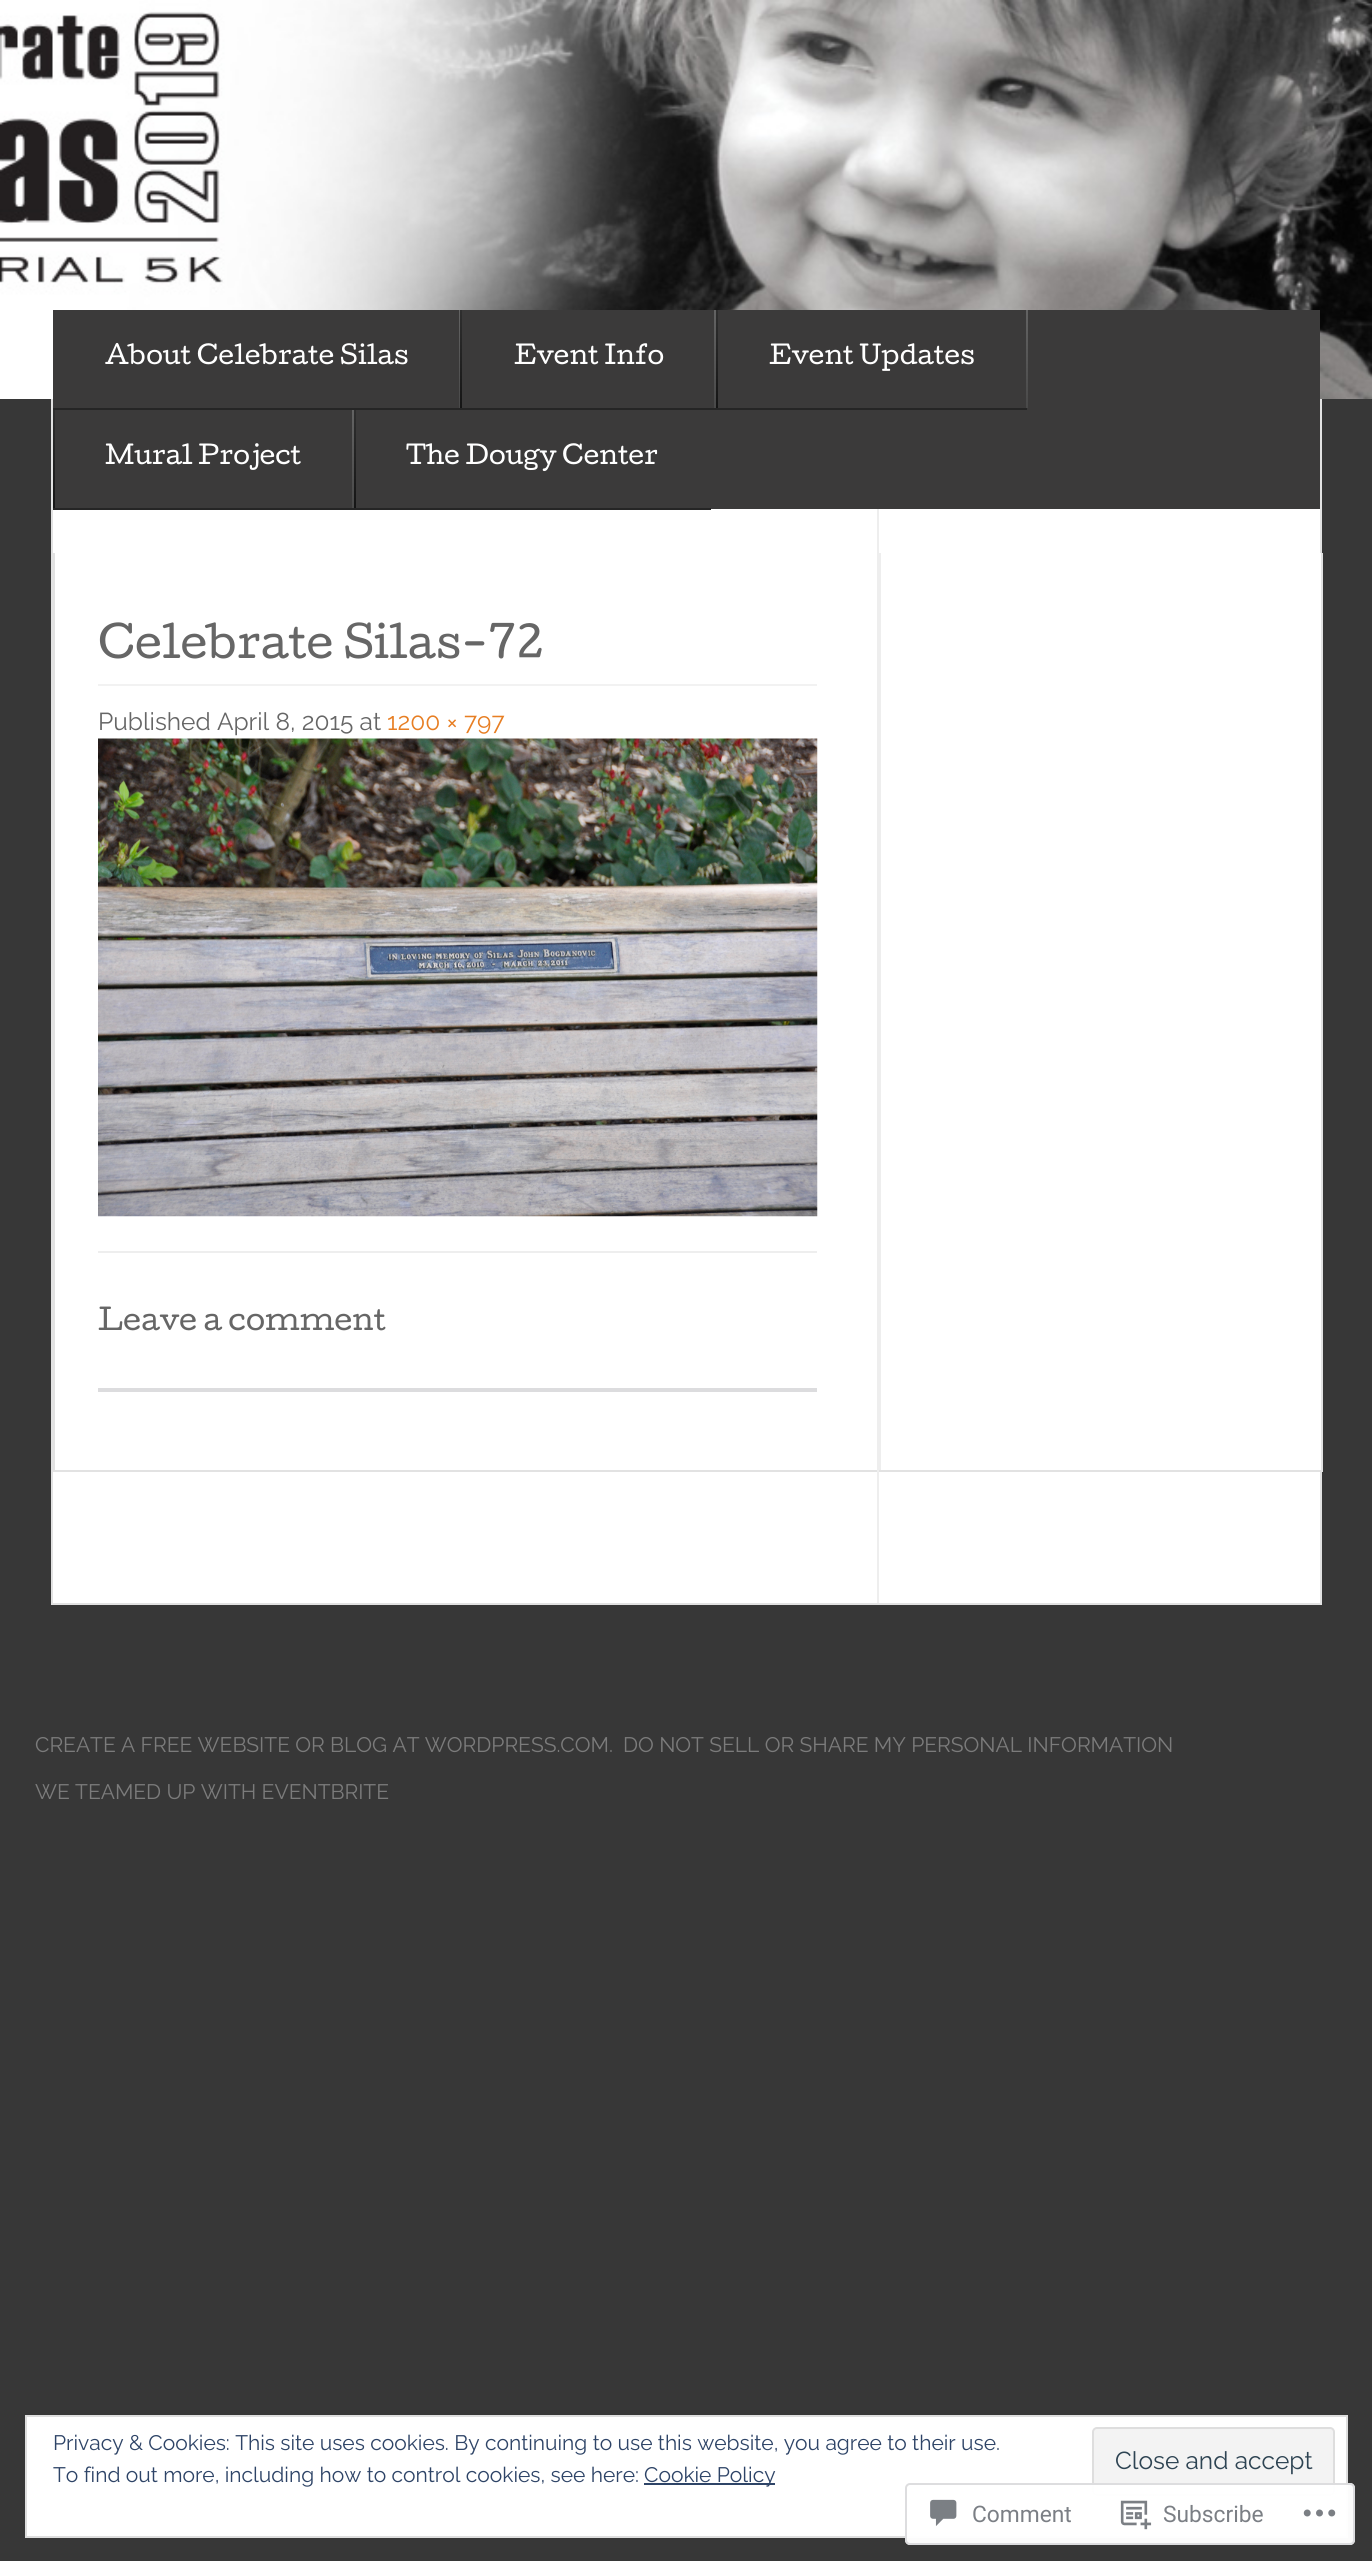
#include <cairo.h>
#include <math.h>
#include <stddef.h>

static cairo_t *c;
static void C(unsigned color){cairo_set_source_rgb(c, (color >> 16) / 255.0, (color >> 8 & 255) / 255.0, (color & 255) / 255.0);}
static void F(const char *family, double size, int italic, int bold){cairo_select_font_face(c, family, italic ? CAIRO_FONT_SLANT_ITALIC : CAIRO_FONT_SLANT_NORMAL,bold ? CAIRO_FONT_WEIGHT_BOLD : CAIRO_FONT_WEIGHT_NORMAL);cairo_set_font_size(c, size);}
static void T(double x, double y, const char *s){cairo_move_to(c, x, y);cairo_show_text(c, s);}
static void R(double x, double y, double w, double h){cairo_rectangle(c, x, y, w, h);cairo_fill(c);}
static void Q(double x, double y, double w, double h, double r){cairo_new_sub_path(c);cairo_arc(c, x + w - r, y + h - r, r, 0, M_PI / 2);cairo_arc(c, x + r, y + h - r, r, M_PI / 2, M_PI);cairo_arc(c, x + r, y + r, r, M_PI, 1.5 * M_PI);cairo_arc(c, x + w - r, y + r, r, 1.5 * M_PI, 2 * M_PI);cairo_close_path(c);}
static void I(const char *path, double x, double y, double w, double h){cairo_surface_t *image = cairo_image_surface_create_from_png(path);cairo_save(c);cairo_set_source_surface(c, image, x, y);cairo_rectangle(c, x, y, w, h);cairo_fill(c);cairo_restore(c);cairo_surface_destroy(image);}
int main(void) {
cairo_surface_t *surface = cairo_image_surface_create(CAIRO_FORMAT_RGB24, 1372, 2561);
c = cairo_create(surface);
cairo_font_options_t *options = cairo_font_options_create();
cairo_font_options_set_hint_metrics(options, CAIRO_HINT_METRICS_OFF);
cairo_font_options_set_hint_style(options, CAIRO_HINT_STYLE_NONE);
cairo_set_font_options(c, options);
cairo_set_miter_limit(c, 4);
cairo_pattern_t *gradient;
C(0x373737);
cairo_paint(c);
I("1.png",0,0,1372,399);
C(0xffffff);
R(53,509,1267,1094);
C(0xe2e2e2);
R(1320,399,2,1206);
R(51,1603,1270,2);
R(51,399,2,1206);
C(0x3b3a3a);
R(53,310,1267,199);
C(0x252525);
R(53,408,974,2);
F("Cutive",24.5,0,0);
C(0xffffff);
T(105,364,"About Celebrate Silas");
gradient = cairo_pattern_create_linear(459,310,459,408);
cairo_pattern_add_color_stop_rgba(gradient,0,0.388,0.388,0.388,1);
cairo_pattern_add_color_stop_rgba(gradient,1,0.286,0.286,0.286,1);
cairo_set_source(c,gradient);
cairo_pattern_destroy(gradient);
R(459,310,1,98);
gradient = cairo_pattern_create_linear(461,310,461,408);
cairo_pattern_add_color_stop_rgba(gradient,0,0.184,0.184,0.184,1);
cairo_pattern_add_color_stop_rgba(gradient,1,0.082,0.082,0.082,1);
cairo_set_source(c,gradient);
cairo_pattern_destroy(gradient);
R(460,310,2,98);
C(0xffffff);
T(514,364,"Event Info");
gradient = cairo_pattern_create_linear(715,310,715,408);
cairo_pattern_add_color_stop_rgba(gradient,0,0.388,0.388,0.388,1);
cairo_pattern_add_color_stop_rgba(gradient,1,0.286,0.286,0.286,1);
cairo_set_source(c,gradient);
cairo_pattern_destroy(gradient);
R(714,310,2,98);
gradient = cairo_pattern_create_linear(717,310,717,408);
cairo_pattern_add_color_stop_rgba(gradient,0,0.184,0.184,0.184,1);
cairo_pattern_add_color_stop_rgba(gradient,1,0.082,0.082,0.082,1);
cairo_set_source(c,gradient);
cairo_pattern_destroy(gradient);
R(716,310,2,98);
C(0xffffff);
T(769,364,"Event Updates");
gradient = cairo_pattern_create_linear(1026,310,1026,408);
cairo_pattern_add_color_stop_rgba(gradient,0,0.388,0.388,0.388,1);
cairo_pattern_add_color_stop_rgba(gradient,1,0.286,0.286,0.286,1);
cairo_set_source(c,gradient);
cairo_pattern_destroy(gradient);
R(1026,310,2,98);
C(0x252525);
R(53,508,658,2);
gradient = cairo_pattern_create_linear(53,410,53,508);
cairo_pattern_add_color_stop_rgba(gradient,0,0.184,0.184,0.184,1);
cairo_pattern_add_color_stop_rgba(gradient,1,0.082,0.082,0.082,1);
cairo_set_source(c,gradient);
cairo_pattern_destroy(gradient);
R(53,410,2,98);
C(0xffffff);
T(105,464,"Mural Project");
gradient = cairo_pattern_create_linear(353,410,353,508);
cairo_pattern_add_color_stop_rgba(gradient,0,0.388,0.388,0.388,1);
cairo_pattern_add_color_stop_rgba(gradient,1,0.286,0.286,0.286,1);
cairo_set_source(c,gradient);
cairo_pattern_destroy(gradient);
R(352,410,2,98);
gradient = cairo_pattern_create_linear(354,410,354,508);
cairo_pattern_add_color_stop_rgba(gradient,0,0.184,0.184,0.184,1);
cairo_pattern_add_color_stop_rgba(gradient,1,0.082,0.082,0.082,1);
cairo_set_source(c,gradient);
cairo_pattern_destroy(gradient);
R(354,410,2,98);
C(0xffffff);
T(406,464,"The Dougy Center");
R(1320,553,1,917);
C(0xe2e2e2);
R(1322,553,1,919);
R(53,1470,1270,2);
R(53,553,2,919);
C(0xf2f2f2);
R(98,684,719,2);
F("Cutive",42,0,0);
C(0x666666);
T(98,658,"Celebrate Silas-72");
F("Raleway",24.5,0,0);
T(98,730,"Published April 8, 2015 at");
C(0xe77e23);
T(387,730,"1200 × 797");
I("2.png",98,738,720,479);
C(0xeeeeee);
R(98,1251,719,2);
F("Cutive",28,0,0);
C(0x666666);
T(98,1330,"Leave a comment");
C(0xdcdcde);
R(98,1388,719,4);
C(0xeeeeee);
R(879,553,2,917);
R(877,509,2,1094);
F("Raleway",21,0,0);
C(0x7b7b7b);
T(35,1752,"CREATE A FREE WEBSITE OR BLOG AT WORDPRESS.COM.");
T(623,1752,"DO NOT SELL OR SHARE MY PERSONAL INFORMATION");
T(35,1799,"WE TEAMED UP WITH EVENTBRITE");
C(0xffffff);
cairo_rectangle(c,26,2416,1321,121);
cairo_fill_preserve(c);
C(0xdedede);
cairo_stroke(c);
C(0x2e4467);
T(53,2450,"Privacy & Cookies: This site uses cookies. By continuing to use this website, you agree to their use.");
T(53,2482,"To find out more, including how to control cookies, see here:");
R(644,2483,131,2);
T(644,2482,"Cookie Policy");
C(0xf3f3f3);
Q(1093,2428,241,67,4);
cairo_fill_preserve(c);
C(0xdedede);
cairo_stroke(c);
F("Raleway",24.5,0,0);
C(0x2e4453);
T(1115,2469,"Close and accept");
cairo_set_source_rgba(c,1,1,1,0.98);
Q(905,2483,450,62,5);
cairo_fill(c);
Q(906,2484,448,60,4);
cairo_set_source_rgba(c,0.863,0.863,0.871,0.98);
cairo_stroke(c);
I("3.png",930,2499,27,27);
F("Roboto",22.75,0,0);
C(0x7b7f85);
T(972,2522,"Comment");
I("4.png",1120,2500,32,30);
T(1163,2522,"Subscribe");
I("5.png",1303,2509,33,8);
cairo_surface_write_to_png(surface, "o.png");
cairo_font_options_destroy(options);
cairo_destroy(c);
cairo_surface_destroy(surface);
return 0;
}
